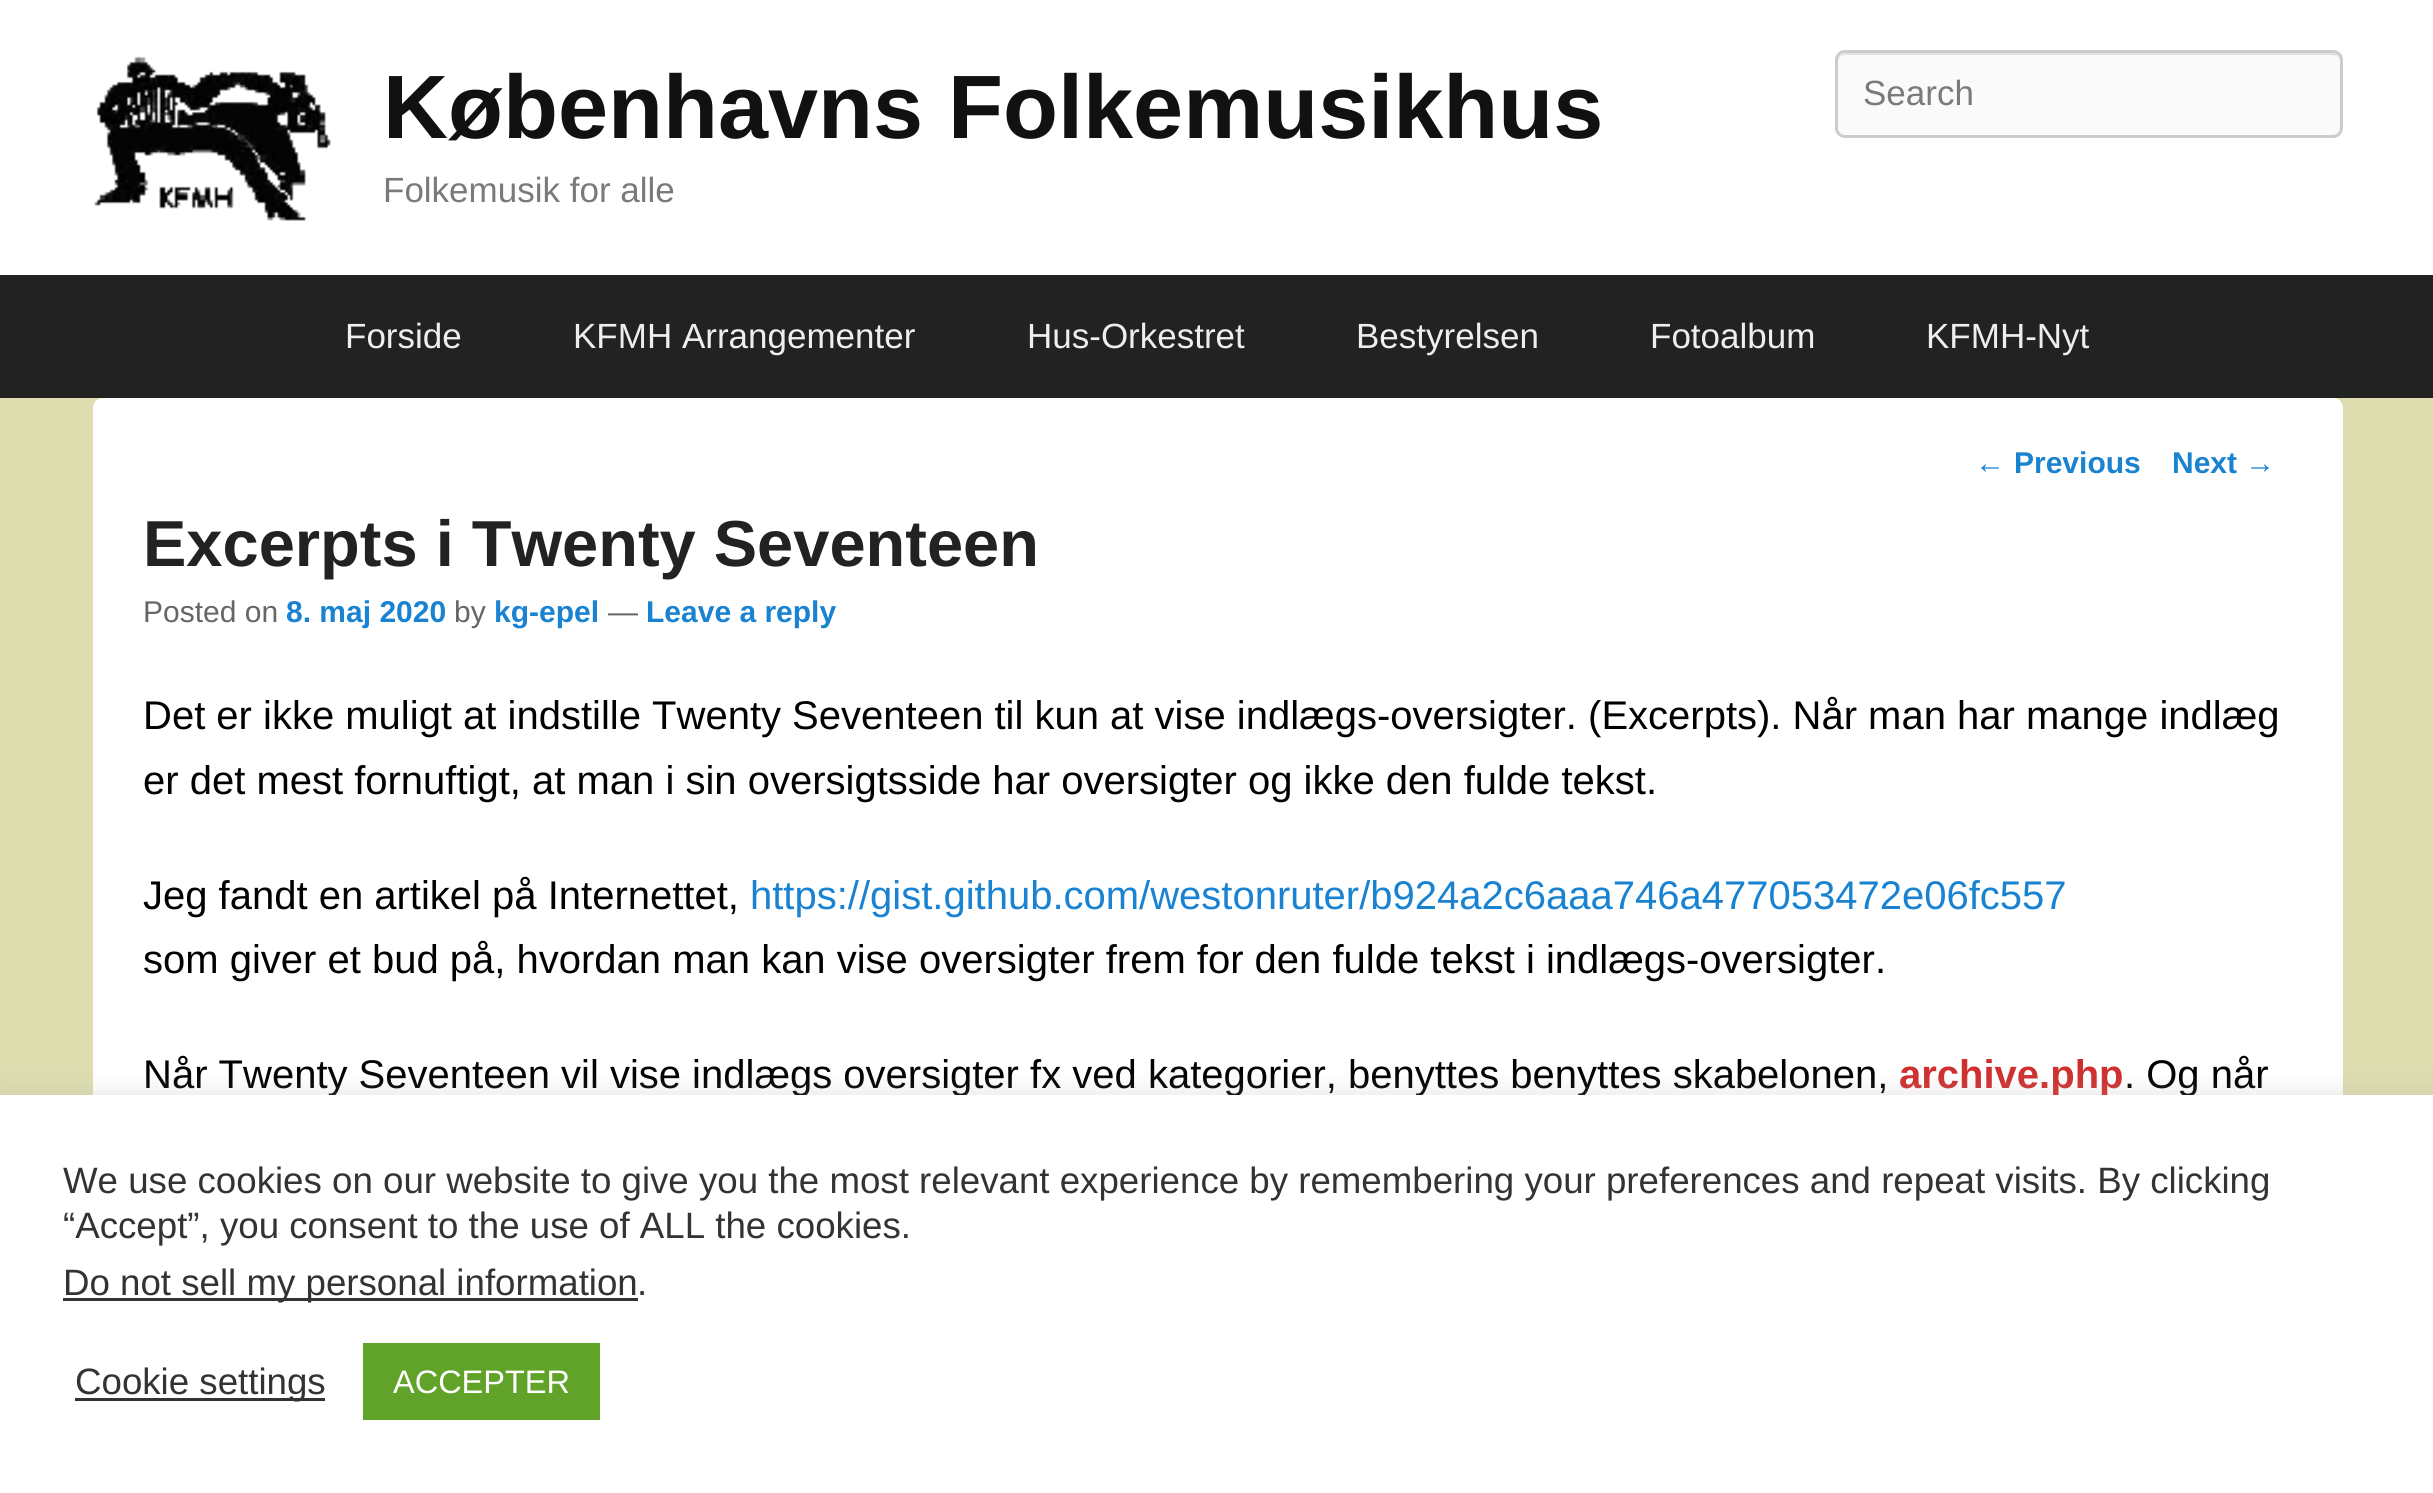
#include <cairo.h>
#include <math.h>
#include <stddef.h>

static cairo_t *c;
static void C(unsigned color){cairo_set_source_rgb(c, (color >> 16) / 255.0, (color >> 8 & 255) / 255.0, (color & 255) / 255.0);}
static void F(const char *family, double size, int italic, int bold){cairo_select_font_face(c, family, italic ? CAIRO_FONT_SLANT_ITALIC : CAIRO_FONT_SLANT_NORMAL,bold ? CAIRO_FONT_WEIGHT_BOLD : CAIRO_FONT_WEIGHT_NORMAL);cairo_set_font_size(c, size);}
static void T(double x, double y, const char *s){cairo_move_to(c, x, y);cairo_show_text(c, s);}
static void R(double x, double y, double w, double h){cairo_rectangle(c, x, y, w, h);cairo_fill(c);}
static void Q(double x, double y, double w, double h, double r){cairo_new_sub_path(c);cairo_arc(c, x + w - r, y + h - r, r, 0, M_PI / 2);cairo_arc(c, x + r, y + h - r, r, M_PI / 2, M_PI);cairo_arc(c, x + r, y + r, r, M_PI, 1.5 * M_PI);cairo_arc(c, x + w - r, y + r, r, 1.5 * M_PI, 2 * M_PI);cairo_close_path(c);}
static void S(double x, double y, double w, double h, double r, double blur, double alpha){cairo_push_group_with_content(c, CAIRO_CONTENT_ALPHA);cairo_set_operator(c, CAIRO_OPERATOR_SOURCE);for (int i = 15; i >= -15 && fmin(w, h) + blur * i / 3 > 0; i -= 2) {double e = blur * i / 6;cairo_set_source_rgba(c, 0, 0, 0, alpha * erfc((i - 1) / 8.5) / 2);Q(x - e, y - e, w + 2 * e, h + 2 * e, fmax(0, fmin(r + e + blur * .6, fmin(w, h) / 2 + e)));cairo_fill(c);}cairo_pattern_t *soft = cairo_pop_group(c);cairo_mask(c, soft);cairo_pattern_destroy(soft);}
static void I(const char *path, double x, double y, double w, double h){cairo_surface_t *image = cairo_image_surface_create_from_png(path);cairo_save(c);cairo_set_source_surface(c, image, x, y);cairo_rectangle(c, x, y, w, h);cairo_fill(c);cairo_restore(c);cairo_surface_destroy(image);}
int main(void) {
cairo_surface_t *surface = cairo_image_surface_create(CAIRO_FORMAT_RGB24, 2433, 1493);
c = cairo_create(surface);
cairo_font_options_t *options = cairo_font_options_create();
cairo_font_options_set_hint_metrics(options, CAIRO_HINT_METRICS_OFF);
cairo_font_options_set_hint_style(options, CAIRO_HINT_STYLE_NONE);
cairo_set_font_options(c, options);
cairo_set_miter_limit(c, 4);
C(0xddddb0);
cairo_paint(c);
C(0xffffff);
R(0,0,2433,275);
I("1.png",94,56,237,165);
F("Liberation Sans",90,0,1);
C(0x111111);
T(383,138,"Københavns Folkemusikhus");
F("Liberation Sans",35,0,0);
C(0x7a7a7a);
T(383,202,"Folkemusik for alle");
C(0xfafafa);
Q(1835,50,508,88,10);
cairo_fill(c);
C(0xe1e1e1);
cairo_new_path(c);
cairo_move_to(c,1845,55);
cairo_line_to(c,2332,55);
cairo_curve_to(c,2337,55,2340,58,2340,62);
cairo_line_to(c,2340,61);
cairo_curve_to(c,2340,57,2336,53,2332,53);
cairo_line_to(c,1846,53);
cairo_curve_to(c,1842,53,1838,57,1838,61);
cairo_line_to(c,1838,62);
cairo_curve_to(c,1838,58,1841,55,1845,55);
cairo_close_path(c);
cairo_fill(c);
Q(1836.5,51.5,505,85,8.5);
C(0xcccccc);
cairo_set_line_width(c,3);
cairo_stroke(c);
C(0x7a7a7a);
T(1863,105,"Search");
C(0x222222);
R(0,275,2433,123);
C(0xeeeeee);
T(345,348,"Forside");
T(573,348,"KFMH Arrangementer");
T(1027,348,"Hus-Orkestret");
T(1356,348,"Bestyrelsen");
T(1650,348,"Fotoalbum");
T(1926,348,"KFMH-Nyt");
C(0xffffff);
Q(93,398,2250,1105,10);
cairo_fill(c);
F("Liberation Sans",30,0,0);
C(0x1982d1);
T(1975,473,"←");
F("Liberation Sans",30,0,1);
T(2014,473,"Previous");
T(2172,473,"Next");
F("Liberation Sans",30,0,0);
T(2245,473,"→");
F("Liberation Sans",65,0,1);
C(0x222222);
T(143,566,"Excerpts i Twenty Seventeen");
F("Liberation Sans",30,0,0);
C(0x666666);
T(143,622,"Posted on");
F("Liberation Sans",30,0,1);
C(0x1982d1);
T(286,622,"8. maj 2020");
F("Liberation Sans",30,0,0);
C(0x666666);
T(454,622,"by");
F("Liberation Sans",30,0,1);
C(0x1982d1);
T(494,622,"kg-epel");
F("Liberation Sans",30,0,0);
C(0x666666);
T(608,622,"—");
F("Liberation Sans",30,0,1);
C(0x1982d1);
T(646,622,"Leave a reply");
F("Liberation Sans",40,0,0);
C(0x000000);
T(143,729,"Det er ikke muligt at indstille Twenty Seventeen til kun at vise indlægs-oversigter. (Excerpts). Når man har mange indlæg");
T(143,794,"er det mest fornuftigt, at man i sin oversigtsside har oversigter og ikke den fulde tekst.");
T(143,909,"Jeg fandt en artikel på Internettet,");
C(0x1982d1);
T(750,909,"https://gist.github.com/westonruter/b924a2c6aaa746a477053472e06fc557");
C(0x000000);
T(143,973,"som giver et bud på, hvordan man kan vise oversigter frem for den fulde tekst i indlægs-oversigter.");
T(143,1088,"Når Twenty Seventeen vil vise indlægs oversigter fx ved kategorier, benyttes benyttes skabelonen,");
F("Liberation Sans",40,0,1);
C(0xcf2e2e);
T(1899,1088,"archive.php");
F("Liberation Sans",40,0,0);
C(0x000000);
T(2124,1088,". Og når");
C(0xacabab);
S(0,1093,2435,400,0,12.5,.3);
C(0xffffff);
R(0,1095,2433,398);
F("Liberation Sans",36.67,0,0);
C(0x333333);
T(63,1193,"We use cookies on our website to give you the most relevant experience by remembering your preferences and repeat visits. By clicking");
T(63,1238,"“Accept”, you consent to the use of ALL the cookies.");
R(63,1298,575,3);
T(63,1295,"Do not sell my personal information");
T(637,1295,".");
R(75,1398,250,3);
T(75,1394,"Cookie settings");
C(0x61a229);
R(363,1343,237,77);
F("Liberation Sans",32.5,0,0);
C(0xffffff);
T(393,1393,"ACCEPTER");
cairo_surface_write_to_png(surface, "o.png");
cairo_font_options_destroy(options);
cairo_destroy(c);
cairo_surface_destroy(surface);
return 0;
}
